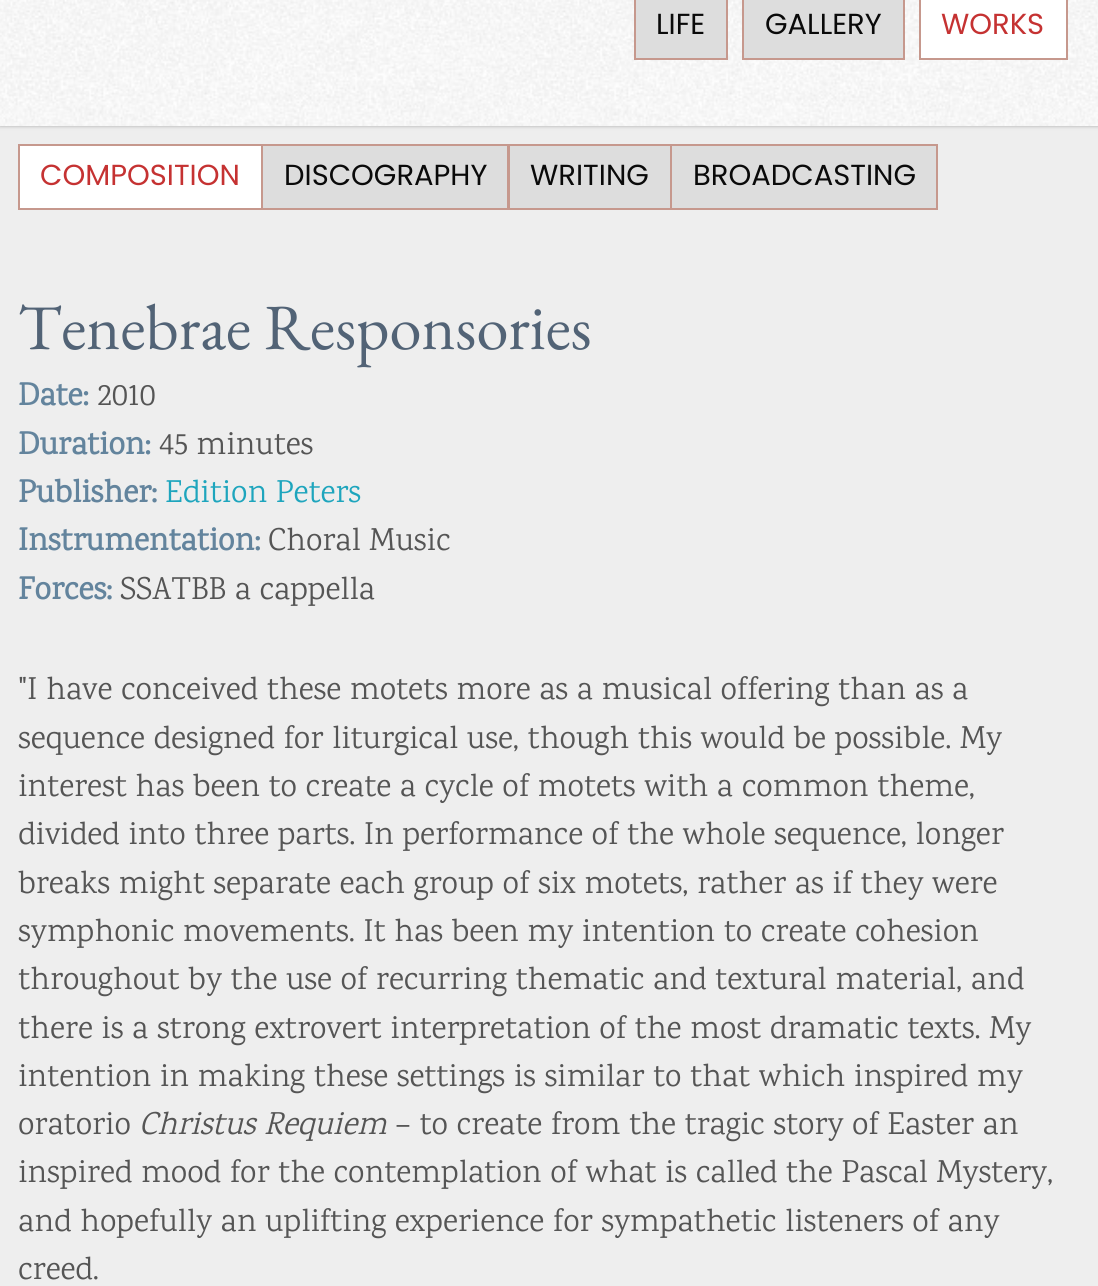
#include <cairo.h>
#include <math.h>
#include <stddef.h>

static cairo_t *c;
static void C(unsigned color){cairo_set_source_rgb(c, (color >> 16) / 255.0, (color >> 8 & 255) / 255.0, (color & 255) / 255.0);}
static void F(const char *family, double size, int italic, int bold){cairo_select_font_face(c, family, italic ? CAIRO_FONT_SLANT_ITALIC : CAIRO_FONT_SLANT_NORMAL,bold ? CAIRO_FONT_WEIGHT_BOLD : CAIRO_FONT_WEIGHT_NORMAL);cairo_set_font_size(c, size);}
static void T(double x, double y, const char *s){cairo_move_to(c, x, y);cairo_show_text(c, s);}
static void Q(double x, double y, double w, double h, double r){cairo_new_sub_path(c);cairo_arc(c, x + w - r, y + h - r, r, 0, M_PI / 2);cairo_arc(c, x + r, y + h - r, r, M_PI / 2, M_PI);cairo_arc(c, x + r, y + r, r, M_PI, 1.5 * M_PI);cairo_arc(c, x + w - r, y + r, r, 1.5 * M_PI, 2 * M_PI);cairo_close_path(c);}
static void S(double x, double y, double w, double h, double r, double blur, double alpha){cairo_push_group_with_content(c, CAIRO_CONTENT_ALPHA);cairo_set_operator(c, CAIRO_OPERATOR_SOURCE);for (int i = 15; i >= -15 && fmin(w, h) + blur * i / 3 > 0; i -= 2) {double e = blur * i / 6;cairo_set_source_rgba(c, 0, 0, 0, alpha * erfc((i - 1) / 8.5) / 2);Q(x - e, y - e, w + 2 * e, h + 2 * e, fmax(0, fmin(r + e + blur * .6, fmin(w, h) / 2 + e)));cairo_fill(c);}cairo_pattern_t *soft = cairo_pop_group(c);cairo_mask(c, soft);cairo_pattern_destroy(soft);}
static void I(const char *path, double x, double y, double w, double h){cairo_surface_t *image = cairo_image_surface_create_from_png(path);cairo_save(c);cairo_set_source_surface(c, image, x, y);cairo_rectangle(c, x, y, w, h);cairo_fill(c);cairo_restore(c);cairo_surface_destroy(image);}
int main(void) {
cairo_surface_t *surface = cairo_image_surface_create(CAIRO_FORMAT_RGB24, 1098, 1286);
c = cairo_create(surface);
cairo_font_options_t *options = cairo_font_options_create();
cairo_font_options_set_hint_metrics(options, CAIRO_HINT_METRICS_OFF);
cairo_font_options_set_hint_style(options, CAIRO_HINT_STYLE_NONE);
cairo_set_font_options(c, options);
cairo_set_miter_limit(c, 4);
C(0xeeeeee);
cairo_paint(c);
C(0xaaaaaa);
S(0,-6,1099,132,0,2,1);
I("1.png",0,0,1098,126);
C(0xdddddd);
cairo_rectangle(c,635,-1,92,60);
cairo_fill_preserve(c);
C(0xc6988d);
cairo_stroke(c);
F("Poppins",29,0,0);
C(0x0a0a0a);
T(656,34,"LIFE");
C(0xdddddd);
cairo_rectangle(c,743,-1,161,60);
cairo_fill_preserve(c);
C(0xc6988d);
cairo_stroke(c);
C(0x0a0a0a);
T(765,34,"GALLERY");
C(0xffffff);
cairo_rectangle(c,920,-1,147,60);
cairo_fill_preserve(c);
C(0xc6988d);
cairo_stroke(c);
C(0xc53232);
T(941,34,"WORKS");
C(0xffffff);
cairo_rectangle(c,19,145,243,64);
cairo_fill_preserve(c);
C(0xc6988d);
cairo_stroke(c);
C(0xc53232);
T(40,185,"COMPOSITION");
C(0xdddddd);
cairo_rectangle(c,262,145,246,64);
cairo_fill_preserve(c);
C(0xc6988d);
cairo_stroke(c);
C(0x0a0a0a);
T(284,185,"DISCOGRAPHY");
C(0xdddddd);
cairo_rectangle(c,509,145,162,64);
cairo_fill_preserve(c);
C(0xc6988d);
cairo_stroke(c);
C(0x0a0a0a);
T(530,185,"WRITING");
C(0xdddddd);
cairo_rectangle(c,671,145,266,64);
cairo_fill_preserve(c);
C(0xc6988d);
cairo_stroke(c);
C(0x0a0a0a);
T(693,185,"BROADCASTING");
F("EB Garamond",64.5,0,0);
C(0x526376);
T(18,349,"Tenebrae Responsories");
F("Karma",32.2,0,1);
C(0x63849d);
T(18,405,"Date:");
F("Karma",32.2,0,0);
C(0x555555);
T(97,405,"2010");
F("Karma",32.2,0,1);
C(0x63849d);
T(18,454,"Duration:");
F("Karma",32.2,0,0);
C(0x555555);
T(159,454,"45 minutes");
F("Karma",32.2,0,1);
C(0x63849d);
T(18,502,"Publisher:");
F("Karma",32.2,0,0);
C(0x1ea5bd);
T(165,502,"Edition Peters");
F("Karma",32.2,0,1);
C(0x63849d);
T(18,550,"Instrumentation:");
F("Karma",32.2,0,0);
C(0x555555);
T(268,550,"Choral Music");
F("Karma",32.2,0,1);
C(0x63849d);
T(18,599,"Forces:");
F("Karma",32.2,0,0);
C(0x555555);
T(120,599,"SSATBB a cappella");
T(18,699,"\"I have conceived these motets more as a musical offering than as a");
T(18,748,"sequence designed for liturgical use, though this would be possible. My");
T(18,796,"interest has been to create a cycle of motets with a common theme,");
T(18,844,"divided into three parts. In performance of the whole sequence, longer");
T(18,893,"breaks might separate each group of six motets, rather as if they were");
T(18,941,"symphonic movements. It has been my intention to create cohesion");
T(18,989,"throughout by the use of recurring thematic and textural material, and");
T(18,1038,"there is a strong extrovert interpretation of the most dramatic texts. My");
T(18,1086,"intention in making these settings is similar to that which inspired my");
T(18,1134,"oratorio");
F("Karma",32.2,1,0);
T(139,1134,"Christus Requiem");
F("Karma",32.2,0,0);
T(395,1134,"– to create from the tragic story of Easter an");
T(18,1182,"inspired mood for the contemplation of what is called the Pascal Mystery,");
T(18,1231,"and hopefully an uplifting experience for sympathetic listeners of any");
T(18,1279,"creed.");
cairo_surface_write_to_png(surface, "o.png");
cairo_font_options_destroy(options);
cairo_destroy(c);
cairo_surface_destroy(surface);
return 0;
}
